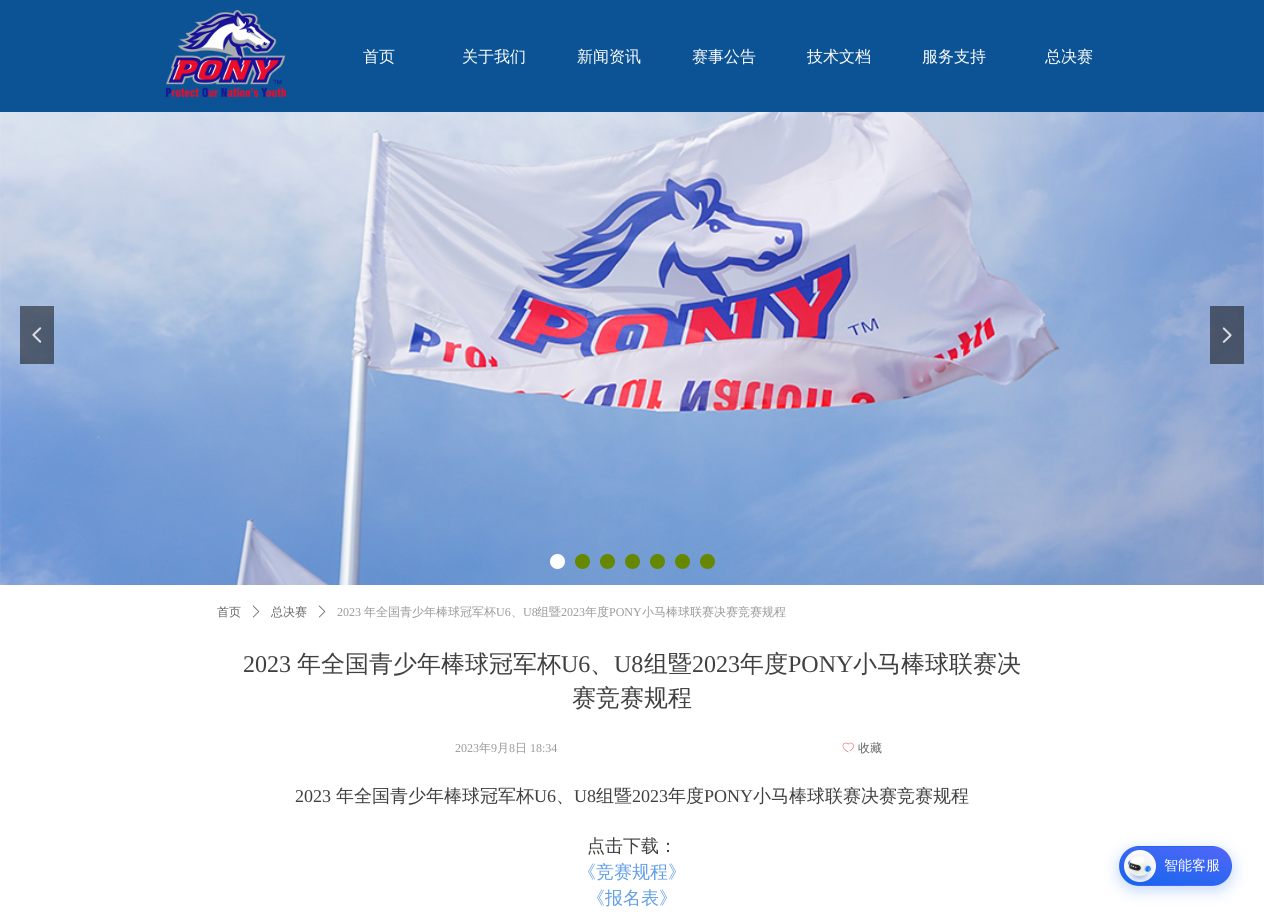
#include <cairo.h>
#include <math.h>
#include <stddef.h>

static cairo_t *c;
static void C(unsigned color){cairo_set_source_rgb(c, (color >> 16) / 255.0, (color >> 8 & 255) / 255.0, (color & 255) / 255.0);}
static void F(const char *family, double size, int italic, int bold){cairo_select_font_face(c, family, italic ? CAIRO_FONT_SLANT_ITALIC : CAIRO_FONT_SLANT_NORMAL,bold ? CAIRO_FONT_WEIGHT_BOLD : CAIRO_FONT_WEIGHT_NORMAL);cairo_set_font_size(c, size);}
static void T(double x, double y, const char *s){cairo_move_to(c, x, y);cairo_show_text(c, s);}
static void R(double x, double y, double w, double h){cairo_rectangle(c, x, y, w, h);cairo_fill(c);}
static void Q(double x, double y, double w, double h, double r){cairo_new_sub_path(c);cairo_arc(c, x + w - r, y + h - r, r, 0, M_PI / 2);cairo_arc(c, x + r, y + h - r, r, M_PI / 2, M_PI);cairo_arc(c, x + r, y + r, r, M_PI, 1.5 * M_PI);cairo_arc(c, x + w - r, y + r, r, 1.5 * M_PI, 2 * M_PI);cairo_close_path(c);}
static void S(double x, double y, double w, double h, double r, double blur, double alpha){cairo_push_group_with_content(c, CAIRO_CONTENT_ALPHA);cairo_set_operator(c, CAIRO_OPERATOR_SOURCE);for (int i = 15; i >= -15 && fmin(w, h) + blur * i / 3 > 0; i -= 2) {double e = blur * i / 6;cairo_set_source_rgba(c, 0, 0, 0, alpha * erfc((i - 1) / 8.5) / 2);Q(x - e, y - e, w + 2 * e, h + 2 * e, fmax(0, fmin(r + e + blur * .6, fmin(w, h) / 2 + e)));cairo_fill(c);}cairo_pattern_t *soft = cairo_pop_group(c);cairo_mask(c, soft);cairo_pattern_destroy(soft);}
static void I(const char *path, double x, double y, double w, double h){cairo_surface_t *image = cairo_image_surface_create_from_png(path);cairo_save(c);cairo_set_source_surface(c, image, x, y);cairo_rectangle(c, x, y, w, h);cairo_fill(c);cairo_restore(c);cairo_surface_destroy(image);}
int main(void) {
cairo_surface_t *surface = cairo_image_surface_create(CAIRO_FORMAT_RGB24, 1264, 918);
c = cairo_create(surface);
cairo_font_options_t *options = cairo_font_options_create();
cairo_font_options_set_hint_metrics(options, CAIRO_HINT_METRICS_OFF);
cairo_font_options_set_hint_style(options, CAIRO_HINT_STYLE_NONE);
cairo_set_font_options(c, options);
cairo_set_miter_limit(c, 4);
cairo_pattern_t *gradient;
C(0xffffff);
cairo_paint(c);
C(0x0b5394);
R(0,0,1264,112);
I("1.png",166,10,120,87);
F("WenQuanYi Zen Hei Medium",16,0,0);
C(0xffffff);
T(363,62,"首页");
T(462,62,"关于我们");
T(577,62,"新闻资讯");
T(692,62,"赛事公告");
T(807,62,"技术文档");
T(922,62,"服务支持");
T(1045,62,"总决赛");
I("2.png",0,112,1264,473);
cairo_set_source_rgba(c,0,0,0,0.5);
R(20,306,34,58);
I("3.png",32,327,10,16);
R(1210,306,34,58);
I("4.png",1222,327,10,16);
C(0xffffff);
cairo_arc(c,557.5,561.5,7.5,0,2 * M_PI);
cairo_fill(c);
C(0x668800);
cairo_arc(c,582.5,561.5,7.5,0,2 * M_PI);
cairo_fill(c);
cairo_arc(c,607.5,561.5,7.5,0,2 * M_PI);
cairo_fill(c);
cairo_arc(c,632.5,561.5,7.5,0,2 * M_PI);
cairo_fill(c);
cairo_arc(c,657.5,561.5,7.5,0,2 * M_PI);
cairo_fill(c);
cairo_arc(c,682.5,561.5,7.5,0,2 * M_PI);
cairo_fill(c);
cairo_arc(c,707.5,561.5,7.5,0,2 * M_PI);
cairo_fill(c);
F("WenQuanYi Zen Hei Medium",12,0,0);
C(0x666666);
T(217,616,"首页");
I("5.png",252,605,8,13);
T(271,616,"总决赛");
I("5.png",318,605,8,13);
F("Liberation Serif",12,0,0);
C(0x999999);
T(337,616,"2023");
F("WenQuanYi Zen Hei Medium",12,0,0);
T(364,616,"年全国青少年棒球冠军杯");
F("Liberation Serif",12,0,0);
T(496,616,"U6");
F("WenQuanYi Zen Hei Medium",12,0,0);
T(511,616,"、");
F("Liberation Serif",12,0,0);
T(523,616,"U8");
F("WenQuanYi Zen Hei Medium",12,0,0);
T(537,616,"组暨");
F("Liberation Serif",12,0,0);
T(561,616,"2023");
F("WenQuanYi Zen Hei Medium",12,0,0);
T(585,616,"年度");
F("Liberation Serif",12,0,0);
T(609,616,"PONY");
F("WenQuanYi Zen Hei Medium",12,0,0);
T(642,616,"小马棒球联赛决赛竞赛规程");
F("Liberation Serif",24,0,0);
C(0x404040);
T(243,672,"2023");
F("WenQuanYi Zen Hei Medium",24,0,0);
T(297,672,"年全国青少年棒球冠军杯");
F("Liberation Serif",24,0,0);
T(561,672,"U6");
F("WenQuanYi Zen Hei Medium",24,0,0);
T(590,672,"、");
F("Liberation Serif",24,0,0);
T(614,672,"U8");
F("WenQuanYi Zen Hei Medium",24,0,0);
T(644,672,"组暨");
F("Liberation Serif",24,0,0);
T(692,672,"2023");
F("WenQuanYi Zen Hei Medium",24,0,0);
T(740,672,"年度");
F("Liberation Serif",24,0,0);
T(788,672,"PONY");
F("WenQuanYi Zen Hei Medium",24,0,0);
T(853,672,"小马棒球联赛决");
T(572,706,"赛竞赛规程");
F("Liberation Serif",12,0,0);
C(0x999999);
T(455,752,"2023");
F("WenQuanYi Zen Hei Medium",12,0,0);
T(479,752,"年");
F("Liberation Serif",12,0,0);
T(491,752,"9");
F("WenQuanYi Zen Hei Medium",12,0,0);
T(497,752,"月");
F("Liberation Serif",12,0,0);
T(509,752,"8");
F("WenQuanYi Zen Hei Medium",12,0,0);
T(515,752,"日");
F("Liberation Serif",12,0,0);
T(530,752,"18:34");
I("6.png",842,742,12,11);
F("WenQuanYi Zen Hei Medium",12,0,0);
C(0x666666);
T(858,752,"收藏");
F("Liberation Serif",18,0,0);
C(0x404040);
T(295,802,"2023");
F("WenQuanYi Zen Hei Medium",18,0,0);
T(336,802,"年全国青少年棒球冠军杯");
F("Liberation Serif",18,0,0);
T(534,802,"U6");
F("WenQuanYi Zen Hei Medium",18,0,0);
T(556,802,"、");
F("Liberation Serif",18,0,0);
T(574,802,"U8");
F("WenQuanYi Zen Hei Medium",18,0,0);
T(596,802,"组暨");
F("Liberation Serif",18,0,0);
T(632,802,"2023");
F("WenQuanYi Zen Hei Medium",18,0,0);
T(668,802,"年度");
F("Liberation Serif",18,0,0);
T(704,802,"PONY");
F("WenQuanYi Zen Hei Medium",18,0,0);
T(753,802,"小马棒球联赛决赛竞赛规程");
T(587,852,"点击下载：");
C(0x609ee9);
T(578,878,"《竞赛规程》");
T(587,904,"《报名表》");
C(0x1366ec);
S(1119,850,113,40,20,7.5,.26);
C(0xffffff);
Q(1119,846,113,40,20);
cairo_fill(c);
cairo_save(c);
Q(1119,846,113,40,20);
cairo_clip(c);
Q(1119,846,113,40,20);
cairo_clip(c);
gradient = cairo_pattern_create_linear(1189,769,1169,858);
cairo_pattern_add_color_stop_rgba(gradient,0,0.451,0.4,1,1);
cairo_pattern_add_color_stop_rgba(gradient,1,0.075,0.4,0.925,1);
cairo_set_source(c,gradient);
cairo_pattern_destroy(gradient);
R(1133,846,85,1);
gradient = cairo_pattern_create_linear(1078,807,1058,896);
cairo_pattern_add_color_stop_rgba(gradient,0,0.451,0.4,1,1);
cairo_pattern_add_color_stop_rgba(gradient,1,0.075,0.4,0.925,1);
cairo_set_source(c,gradient);
cairo_pattern_destroy(gradient);
R(1119,860,1,12);
gradient = cairo_pattern_create_linear(1189,807,1169,896);
cairo_pattern_add_color_stop_rgba(gradient,0,0.451,0.4,1,1);
cairo_pattern_add_color_stop_rgba(gradient,1,0.075,0.4,0.925,1);
cairo_set_source(c,gradient);
cairo_pattern_destroy(gradient);
R(1120,847,111,38);
gradient = cairo_pattern_create_linear(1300,807,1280,896);
cairo_pattern_add_color_stop_rgba(gradient,0,0.451,0.4,1,1);
cairo_pattern_add_color_stop_rgba(gradient,1,0.075,0.4,0.925,1);
cairo_set_source(c,gradient);
cairo_pattern_destroy(gradient);
R(1231,860,1,12);
gradient = cairo_pattern_create_linear(1189,845,1169,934);
cairo_pattern_add_color_stop_rgba(gradient,0,0.451,0.4,1,1);
cairo_pattern_add_color_stop_rgba(gradient,1,0.075,0.4,0.925,1);
cairo_set_source(c,gradient);
cairo_pattern_destroy(gradient);
R(1133,885,85,1);
cairo_restore(c);
I("7.png",1124,850,32,32);
F("WenQuanYi Zen Hei Medium",14,0,0);
T(1164,870,"智能客服");
cairo_surface_write_to_png(surface, "o.png");
cairo_font_options_destroy(options);
cairo_destroy(c);
cairo_surface_destroy(surface);
return 0;
}
